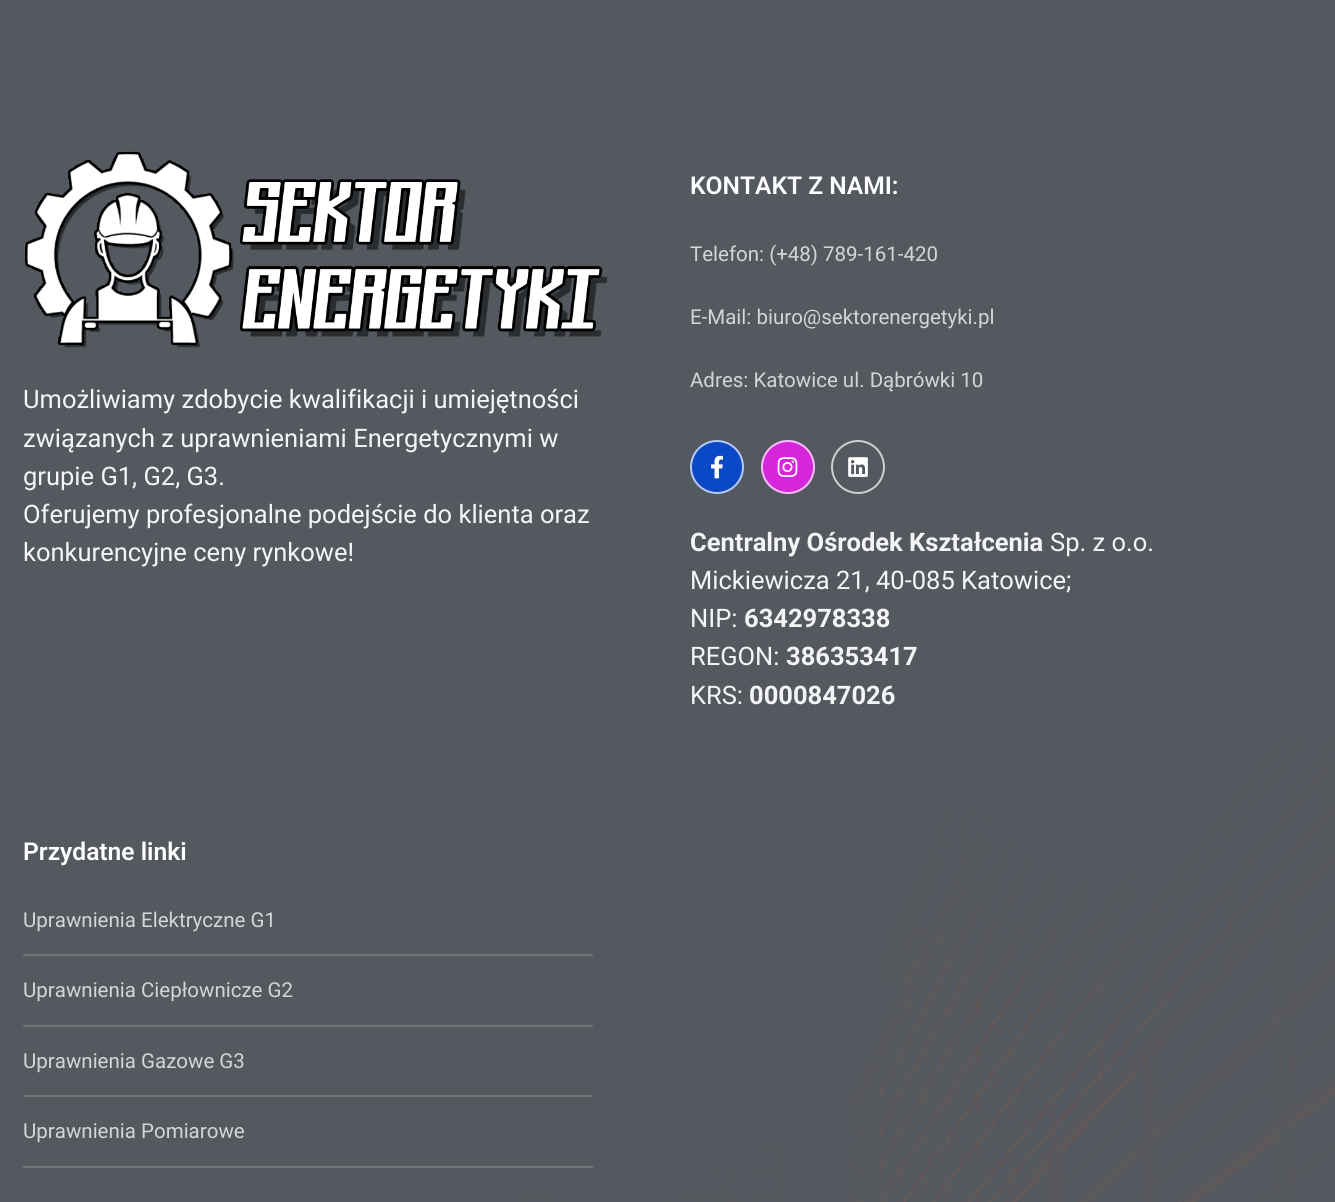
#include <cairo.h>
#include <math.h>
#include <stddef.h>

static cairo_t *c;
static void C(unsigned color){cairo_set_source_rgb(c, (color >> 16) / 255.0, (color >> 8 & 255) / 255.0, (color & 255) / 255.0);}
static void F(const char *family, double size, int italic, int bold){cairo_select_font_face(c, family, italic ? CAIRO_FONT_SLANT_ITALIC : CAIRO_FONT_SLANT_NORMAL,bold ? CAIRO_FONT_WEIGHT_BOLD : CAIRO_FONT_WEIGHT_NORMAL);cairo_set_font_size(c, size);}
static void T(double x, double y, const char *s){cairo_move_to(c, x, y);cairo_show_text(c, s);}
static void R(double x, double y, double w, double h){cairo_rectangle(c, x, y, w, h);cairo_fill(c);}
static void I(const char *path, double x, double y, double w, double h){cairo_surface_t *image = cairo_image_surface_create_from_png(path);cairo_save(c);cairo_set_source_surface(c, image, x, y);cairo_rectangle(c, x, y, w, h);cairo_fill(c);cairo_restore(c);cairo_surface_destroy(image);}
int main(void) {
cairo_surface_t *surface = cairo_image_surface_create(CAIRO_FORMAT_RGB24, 1335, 1202);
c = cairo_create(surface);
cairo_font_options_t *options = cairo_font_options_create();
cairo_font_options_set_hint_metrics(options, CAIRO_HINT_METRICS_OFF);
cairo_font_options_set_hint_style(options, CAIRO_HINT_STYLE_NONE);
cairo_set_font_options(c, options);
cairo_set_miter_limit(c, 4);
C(0x54595f);
cairo_paint(c);
I("1.png",25,151,583,197);
F("Roboto",25.5,0,0);
C(0xf5f5f5);
T(23,408,"Umożliwiamy zdobycie kwalifikacji i umiejętności");
T(23,447,"związanych z uprawnieniami Energetycznymi w");
T(23,485,"grupie G1, G2, G3.");
T(23,523,"Oferujemy profesjonalne podejście do klienta oraz");
T(23,561,"konkurencyjne ceny rynkowe!");
F("Roboto SemiBold",24.6,0,0);
C(0xffffff);
T(690,194,"KONTAKT Z NAMI:");
F("Roboto",20.5,0,0);
C(0xd5d5d5);
T(690,261,"Telefon: (+48) 789-161-420");
T(690,324,"E-Mail: biuro@sektorenergetyki.pl");
T(690,387,"Adres: Katowice ul. Dąbrówki 10");
C(0x0a48c5);
cairo_new_path(c);
cairo_arc(c,717,467,27,0,2 * M_PI);
cairo_fill(c);
cairo_arc(c,717,467,26,0,2 * M_PI);
cairo_set_source_rgba(c,1,1,1,0.71);
cairo_stroke(c);
I("2.png",711,455,12,24);
C(0xd625db);
cairo_arc(c,788,467,27,0,2 * M_PI);
cairo_fill(c);
cairo_arc(c,788,467,26,0,2 * M_PI);
cairo_set_source_rgba(c,1,1,1,0.71);
cairo_stroke(c);
I("3.png",777,457,21,20);
cairo_arc(c,858,467,26,0,2 * M_PI);
C(0xcdcfd1);
cairo_stroke(c);
I("4.png",848,457,20,20);
F("Roboto",25.5,0,1);
C(0xf5f5f5);
T(690,551,"Centralny Ośrodek Kształcenia");
F("Roboto",25.5,0,0);
T(1050,551,"Sp. z o.o.");
T(690,589,"Mickiewicza 21, 40-085 Katowice;");
T(690,627,"NIP:");
F("Roboto",25.5,0,1);
T(744,627,"6342978338");
F("Roboto",25.5,0,0);
T(690,665,"REGON:");
F("Roboto",25.5,0,1);
T(786,665,"386353417");
F("Roboto",25.5,0,0);
T(690,704,"KRS:");
F("Roboto",25.5,0,1);
T(749,704,"0000847026");
F("Roboto SemiBold",24.6,0,0);
C(0xffffff);
T(23,860,"Przydatne linki");
F("Roboto",20.5,0,0);
C(0xd5d5d5);
T(23,927,"Uprawnienia Elektryczne G1");
I("5.png",526,741,809,461);
C(0x6f7479);
R(23,954,570,2);
C(0xd5d5d5);
T(23,997,"Uprawnienia Ciepłownicze G2");
C(0x6f7479);
R(23,1025,570,2);
C(0xd5d5d5);
T(23,1068,"Uprawnienia Gazowe G3");
C(0x6f7479);
R(23,1095,570,2);
C(0xd5d5d5);
T(23,1138,"Uprawnienia Pomiarowe");
C(0x6f7479);
R(23,1166,570,2);
cairo_surface_write_to_png(surface, "o.png");
cairo_font_options_destroy(options);
cairo_destroy(c);
cairo_surface_destroy(surface);
return 0;
}
